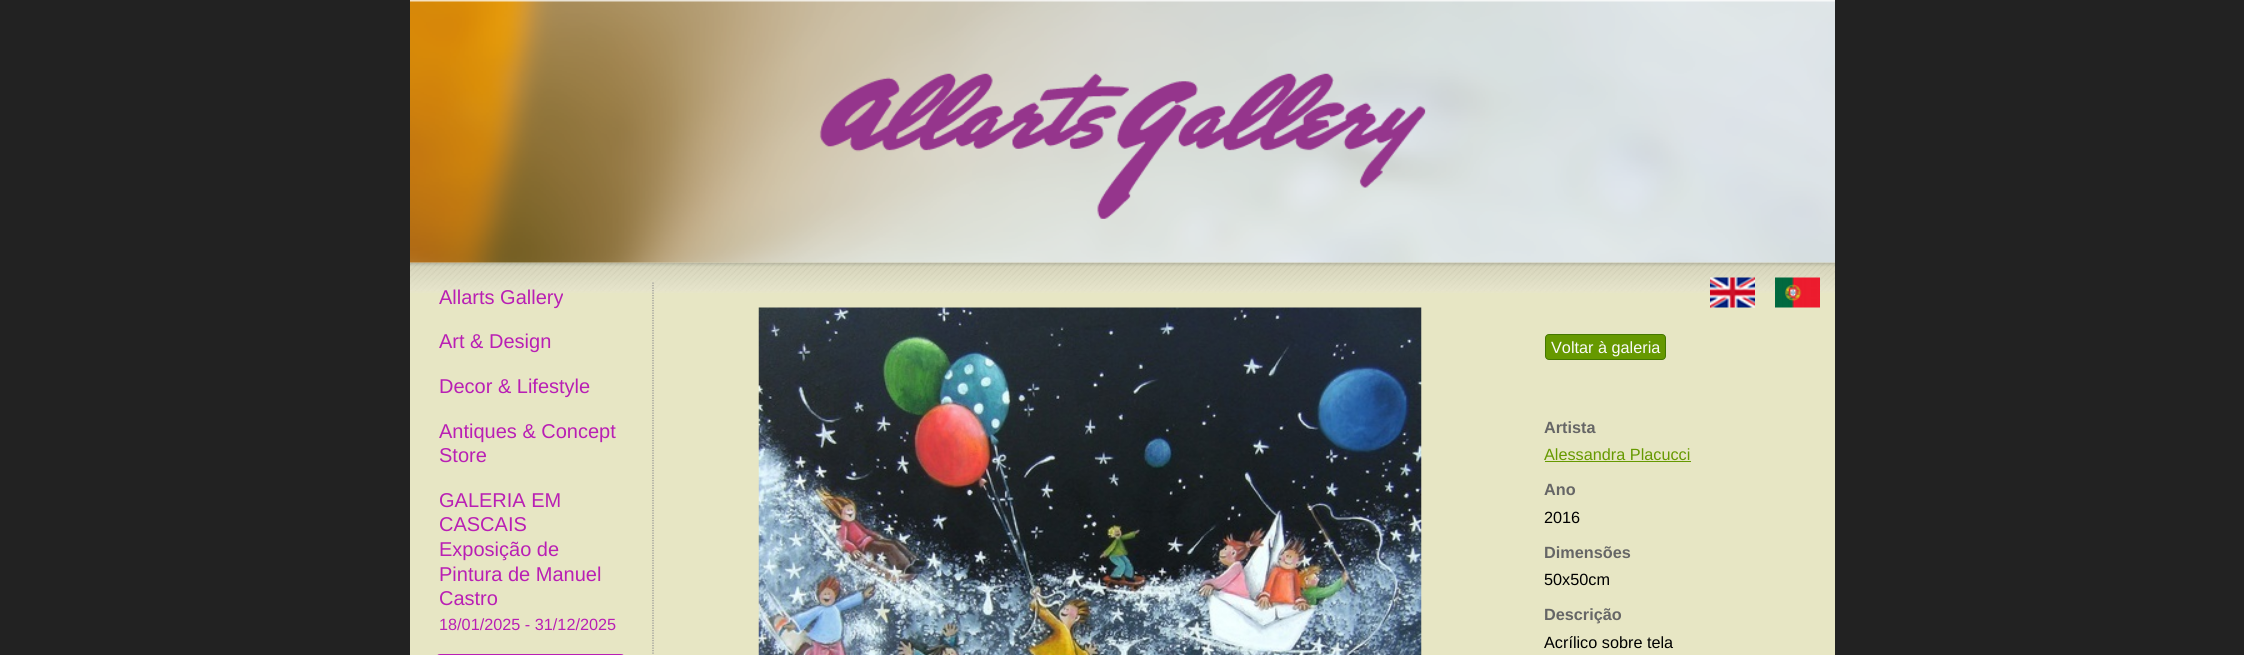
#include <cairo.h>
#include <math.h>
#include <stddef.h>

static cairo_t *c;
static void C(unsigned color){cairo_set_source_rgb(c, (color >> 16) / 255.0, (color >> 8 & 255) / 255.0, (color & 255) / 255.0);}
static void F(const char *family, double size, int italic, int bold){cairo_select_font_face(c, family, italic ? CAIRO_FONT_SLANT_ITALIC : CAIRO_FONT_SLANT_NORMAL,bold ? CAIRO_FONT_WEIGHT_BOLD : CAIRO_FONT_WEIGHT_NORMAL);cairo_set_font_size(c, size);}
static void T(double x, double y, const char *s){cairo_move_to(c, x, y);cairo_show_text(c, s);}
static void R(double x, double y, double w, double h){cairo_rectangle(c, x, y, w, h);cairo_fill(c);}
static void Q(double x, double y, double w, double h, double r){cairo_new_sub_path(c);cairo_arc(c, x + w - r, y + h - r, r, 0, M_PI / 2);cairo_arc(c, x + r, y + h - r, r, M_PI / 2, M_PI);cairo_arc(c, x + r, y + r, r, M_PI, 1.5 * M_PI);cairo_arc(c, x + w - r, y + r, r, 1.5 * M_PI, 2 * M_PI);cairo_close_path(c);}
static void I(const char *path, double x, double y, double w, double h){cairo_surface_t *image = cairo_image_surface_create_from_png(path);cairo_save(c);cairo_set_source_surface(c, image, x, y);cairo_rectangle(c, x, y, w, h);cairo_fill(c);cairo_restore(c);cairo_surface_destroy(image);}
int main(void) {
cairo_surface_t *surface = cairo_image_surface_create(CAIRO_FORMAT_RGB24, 2244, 655);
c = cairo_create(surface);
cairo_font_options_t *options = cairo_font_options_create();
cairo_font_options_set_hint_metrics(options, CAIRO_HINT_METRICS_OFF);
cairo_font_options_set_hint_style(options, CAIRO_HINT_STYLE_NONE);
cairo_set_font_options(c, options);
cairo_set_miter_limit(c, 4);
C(0x222222);
cairo_paint(c);
C(0xe7e6c4);
R(410,262,1425,393);
I("1.png",410,262,1425,31);
I("2.png",410,0,1425,263);
I("3.png",819,73,607,146);
cairo_new_path(c);
cairo_move_to(c,653,282.5);
cairo_line_to(c,653,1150);
C(0x939393);
cairo_set_line_width(c,1.2);
cairo_set_dash(c,(double[]){1.25,1.25},2,0);
cairo_stroke(c);
F("Liberation Sans",20,0,0);
C(0xb91fb4);
T(439,304,"Allarts Gallery");
T(439,348,"Art & Design");
T(439,393,"Decor & Lifestyle");
T(439,438,"Antiques & Concept");
T(439,462,"Store");
T(439,507,"GALERIA EM");
T(439,531,"CASCAIS");
T(439,556,"Exposição de");
T(439,581,"Pintura de Manuel");
T(439,605,"Castro");
F("Liberation Sans",16.25,0,0);
T(439,630,"18/01/2025 - 31/12/2025");
Q(436.5,654.5,188,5,3.5);
cairo_set_line_width(c,1);
cairo_set_dash(c,NULL,0,0);
cairo_stroke(c);
I("4.png",758,307,664,348);
C(0x669900);
Q(1545.5,334.5,120,25,3.5);
cairo_fill_preserve(c);
C(0x447700);
cairo_stroke(c);
C(0xfafafa);
T(1551,353,"Voltar à galeria");
F("Liberation Sans",16.25,0,1);
C(0x666666);
T(1544,433,"Artista");
F("Liberation Sans",16.25,0,0);
C(0x669900);
T(1544,460,"Alessandra Placucci");
R(1545,461,146,1);
F("Liberation Sans",16.25,0,1);
C(0x666666);
T(1544,495,"Ano");
F("Liberation Sans",16.25,0,0);
C(0x000000);
T(1544,523,"2016");
F("Liberation Sans",16.25,0,1);
C(0x666666);
T(1544,558,"Dimensões");
F("Liberation Sans",16.25,0,0);
C(0x000000);
T(1544,585,"50x50cm");
F("Liberation Sans",16.25,0,1);
C(0x666666);
T(1544,620,"Descrição");
F("Liberation Sans",16.25,0,0);
C(0x000000);
T(1544,648,"Acrílico sobre tela");
I("5.png",1710,277,45,31);
I("6.png",1775,277,45,31);
cairo_surface_write_to_png(surface, "o.png");
cairo_font_options_destroy(options);
cairo_destroy(c);
cairo_surface_destroy(surface);
return 0;
}
